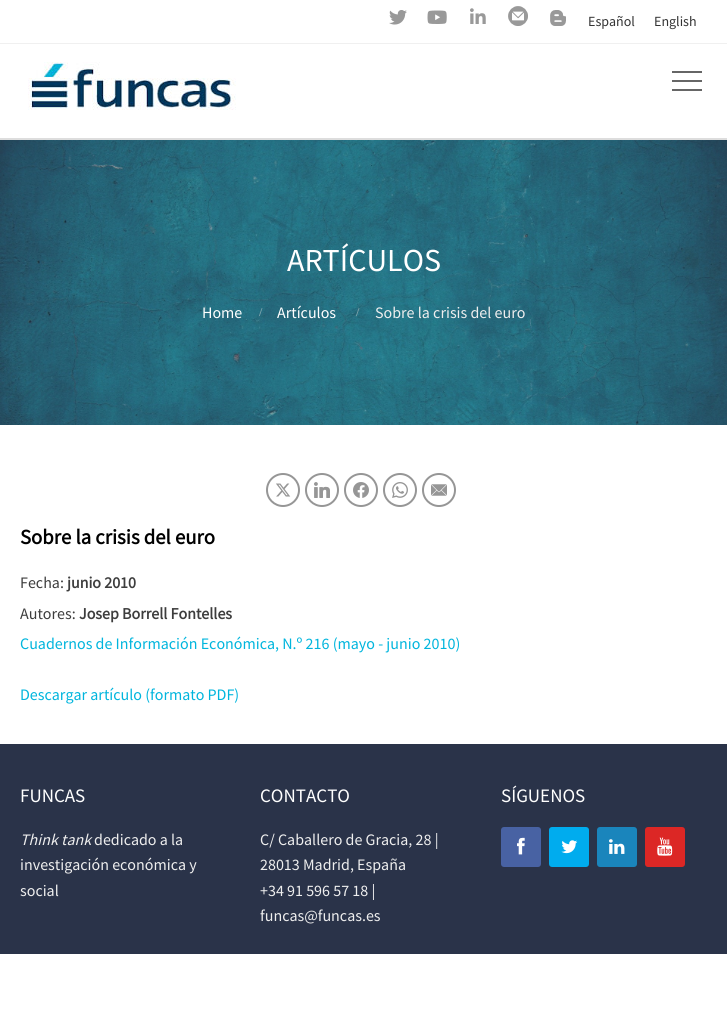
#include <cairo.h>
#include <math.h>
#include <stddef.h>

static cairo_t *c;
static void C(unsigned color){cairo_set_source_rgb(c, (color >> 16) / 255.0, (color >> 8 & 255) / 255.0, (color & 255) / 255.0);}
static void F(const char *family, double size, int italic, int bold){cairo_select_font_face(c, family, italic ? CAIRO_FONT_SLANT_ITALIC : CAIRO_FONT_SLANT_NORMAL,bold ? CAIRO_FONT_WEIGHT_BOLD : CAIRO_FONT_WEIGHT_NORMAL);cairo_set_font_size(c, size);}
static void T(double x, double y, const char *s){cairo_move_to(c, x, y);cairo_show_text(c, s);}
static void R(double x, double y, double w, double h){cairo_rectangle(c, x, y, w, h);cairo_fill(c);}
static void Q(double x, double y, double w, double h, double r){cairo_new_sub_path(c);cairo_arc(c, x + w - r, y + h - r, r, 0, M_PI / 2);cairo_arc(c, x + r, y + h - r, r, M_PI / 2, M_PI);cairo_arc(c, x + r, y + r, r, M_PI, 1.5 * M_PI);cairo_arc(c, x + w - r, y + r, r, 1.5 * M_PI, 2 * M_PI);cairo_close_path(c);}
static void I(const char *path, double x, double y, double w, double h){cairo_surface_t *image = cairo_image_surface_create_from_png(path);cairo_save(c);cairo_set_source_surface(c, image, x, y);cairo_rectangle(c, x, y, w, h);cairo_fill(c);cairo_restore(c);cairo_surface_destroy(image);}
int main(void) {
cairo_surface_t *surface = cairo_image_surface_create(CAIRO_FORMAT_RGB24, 727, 1011);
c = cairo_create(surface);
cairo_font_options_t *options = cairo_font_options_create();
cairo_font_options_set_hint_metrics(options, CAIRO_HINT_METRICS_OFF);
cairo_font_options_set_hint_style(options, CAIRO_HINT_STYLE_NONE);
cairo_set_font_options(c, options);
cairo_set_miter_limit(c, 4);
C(0xffffff);
cairo_paint(c);
C(0xf0f0f0);
R(0,43,727,1);
I("1.png",389,10,18,15);
I("2.png",427,10,20,14);
I("3.png",470,8,16,16);
I("4.png",508,6,20,20);
I("5.png",550,10,16,16);
F("Source Sans Pro",14,0,0);
C(0x333333);
T(588,26,"Español");
T(654,26,"English");
C(0xdddddd);
R(0,138,727,2);
I("6.png",28,62,208,48);
C(0x666666);
R(672,71,30,2);
R(672,89,30,2);
R(672,80,30,2);
I("7.png",0,140,727,285);
F("Source Sans Pro",32,0,0);
C(0xffffff);
T(287,271,"ARTÍCULOS");
F("Source Sans Pro",16,0,0);
T(202,318,"Home");
F("Liberation Serif",12,0,1);
C(0x81a5ae);
T(259,316,"/");
F("Source Sans Pro",16,0,0);
C(0xffffff);
T(277,318,"Artículos");
F("Liberation Serif",12,0,1);
C(0x81a5ae);
T(356,316,"/");
F("Source Sans Pro",16,0,0);
C(0xeeeeee);
T(375,318,"Sobre la crisis del euro");
cairo_new_path(c);
cairo_arc(c,283,490,16,0,2 * M_PI);
C(0x969696);
cairo_stroke(c);
I("8.png",276,483,15,14);
cairo_arc(c,322,490,16,0,2 * M_PI);
cairo_stroke(c);
I("9.png",314,482,16,16);
cairo_arc(c,361,490,16,0,2 * M_PI);
cairo_stroke(c);
I("10.png",353,482,16,16);
cairo_arc(c,400,490,16,0,2 * M_PI);
cairo_stroke(c);
I("11.png",392,482,16,16);
cairo_arc(c,439,490,16,0,2 * M_PI);
cairo_stroke(c);
I("12.png",431,484,16,12);
F("Source Sans Pro",20.75,0,1);
C(0x000000);
T(20,544,"Sobre la crisis del euro");
F("Source Sans Pro",16,0,0);
C(0x3d3d3d);
T(20,588,"Fecha:");
F("Source Sans Pro",16,0,1);
T(67,588,"junio 2010");
F("Source Sans Pro",16,0,0);
T(20,619,"Autores:");
F("Source Sans Pro",16,0,1);
T(79,619,"Josep Borrell Fontelles");
F("Source Sans Pro",16,0,0);
C(0x00b5dd);
T(20,649,"Cuadernos de Información Económica, N.º 216 (mayo - junio 2010)");
T(20,700,"Descargar artículo (formato PDF)");
C(0x2a3349);
R(0,744,727,210);
F("Source Sans Pro",19,0,0);
C(0xffffff);
T(20,802,"FUNCAS");
F("Source Sans Pro",16,1,0);
C(0xeeeeee);
T(20,845,"Think tank");
F("Source Sans Pro",16,0,0);
T(94,845,"dedicado a la");
T(20,870,"investigación económica y");
T(20,896,"social");
F("Source Sans Pro",19,0,0);
C(0xffffff);
T(260,802,"CONTACTO");
F("Source Sans Pro",16,0,0);
C(0xeeeeee);
T(260,845,"C/ Caballero de Gracia, 28 |");
T(260,870,"28013 Madrid, España");
T(260,896,"+34 91 596 57 18 |");
T(260,921,"funcas@funcas.es");
F("Source Sans Pro",19,0,0);
C(0xffffff);
T(501,802,"SÍGUENOS");
C(0x4862a3);
Q(501,827,40,40,3);
cairo_fill(c);
I("13.png",517,837,8,18);
C(0x00acee);
Q(549,827,40,40,3);
cairo_fill(c);
I("14.png",561,840,17,14);
C(0x1a85bc);
Q(597,827,40,40,3);
cairo_fill(c);
I("15.png",609,839,16,15);
C(0xdc2725);
Q(645,827,40,40,3);
cairo_fill(c);
I("16.png",657,837,16,19);
cairo_surface_write_to_png(surface, "o.png");
cairo_font_options_destroy(options);
cairo_destroy(c);
cairo_surface_destroy(surface);
return 0;
}
